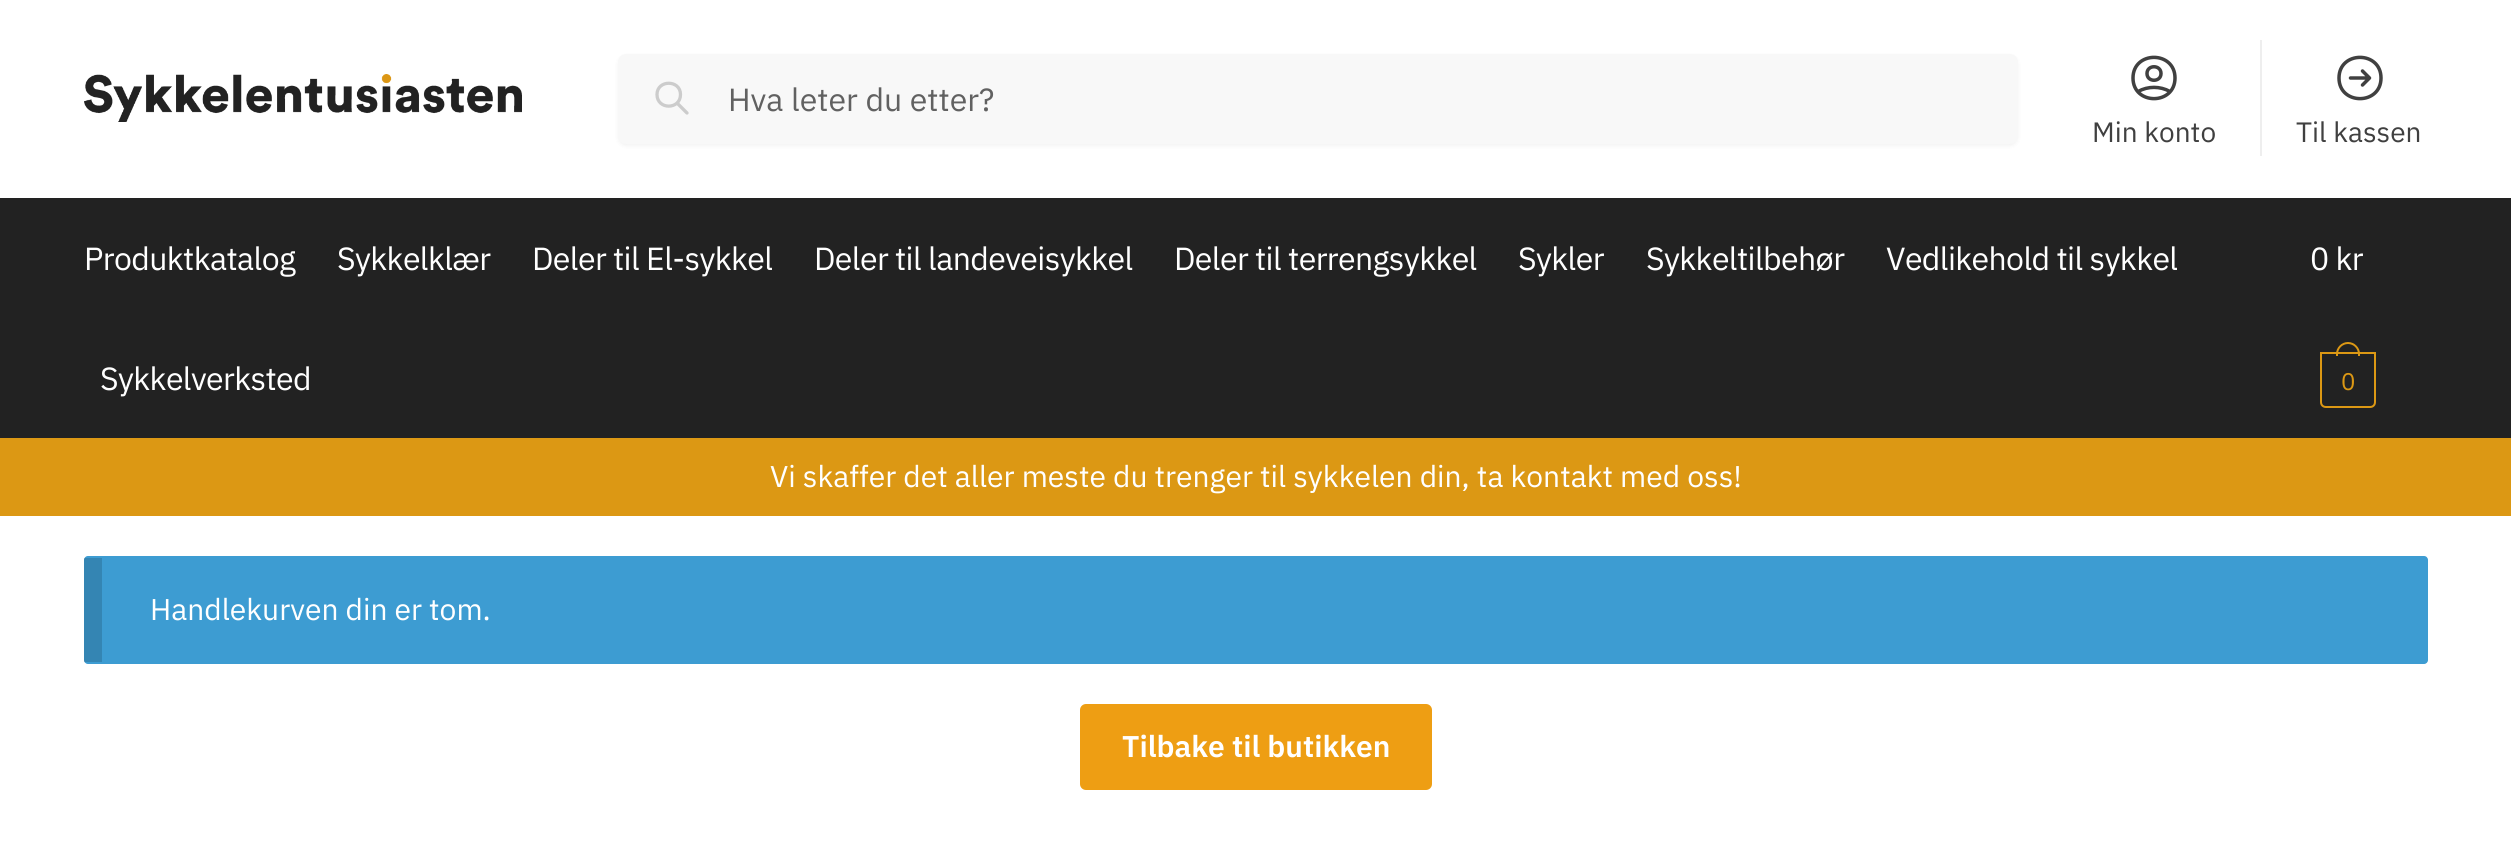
#include <cairo.h>
#include <math.h>
#include <stddef.h>

static cairo_t *c;
static void C(unsigned color){cairo_set_source_rgb(c, (color >> 16) / 255.0, (color >> 8 & 255) / 255.0, (color & 255) / 255.0);}
static void F(const char *family, double size, int italic, int bold){cairo_select_font_face(c, family, italic ? CAIRO_FONT_SLANT_ITALIC : CAIRO_FONT_SLANT_NORMAL,bold ? CAIRO_FONT_WEIGHT_BOLD : CAIRO_FONT_WEIGHT_NORMAL);cairo_set_font_size(c, size);}
static void T(double x, double y, const char *s){cairo_move_to(c, x, y);cairo_show_text(c, s);}
static void L(double x, double y, const char *s, double letter, double word){cairo_move_to(c, x, y);while (*s) {char ch[5] = {0};int n = 0;do ch[n++] = *s++; while ((*s & 0xC0) == 0x80);cairo_show_text(c, ch);cairo_rel_move_to(c, letter + word * (*ch == ' '), 0);}}
static void R(double x, double y, double w, double h){cairo_rectangle(c, x, y, w, h);cairo_fill(c);}
static void Q(double x, double y, double w, double h, double r){cairo_new_sub_path(c);cairo_arc(c, x + w - r, y + h - r, r, 0, M_PI / 2);cairo_arc(c, x + r, y + h - r, r, M_PI / 2, M_PI);cairo_arc(c, x + r, y + r, r, M_PI, 1.5 * M_PI);cairo_arc(c, x + w - r, y + r, r, 1.5 * M_PI, 2 * M_PI);cairo_close_path(c);}
static void S(double x, double y, double w, double h, double r, double blur, double alpha){cairo_push_group_with_content(c, CAIRO_CONTENT_ALPHA);cairo_set_operator(c, CAIRO_OPERATOR_SOURCE);for (int i = 15; i >= -15 && fmin(w, h) + blur * i / 3 > 0; i -= 2) {double e = blur * i / 6;cairo_set_source_rgba(c, 0, 0, 0, alpha * erfc((i - 1) / 8.5) / 2);Q(x - e, y - e, w + 2 * e, h + 2 * e, fmax(0, fmin(r + e + blur * .6, fmin(w, h) / 2 + e)));cairo_fill(c);}cairo_pattern_t *soft = cairo_pop_group(c);cairo_mask(c, soft);cairo_pattern_destroy(soft);}
static void I(const char *path, double x, double y, double w, double h){cairo_surface_t *image = cairo_image_surface_create_from_png(path);cairo_save(c);cairo_set_source_surface(c, image, x, y);cairo_rectangle(c, x, y, w, h);cairo_fill(c);cairo_restore(c);cairo_surface_destroy(image);}
int main(void) {
cairo_surface_t *surface = cairo_image_surface_create(CAIRO_FORMAT_RGB24, 2511, 846);
c = cairo_create(surface);
cairo_font_options_t *options = cairo_font_options_create();
cairo_font_options_set_hint_metrics(options, CAIRO_HINT_METRICS_OFF);
cairo_font_options_set_hint_style(options, CAIRO_HINT_STYLE_NONE);
cairo_set_font_options(c, options);
cairo_set_miter_limit(c, 4);
C(0xffffff);
cairo_paint(c);
I("1.png",84,74,438,48);
C(0x000000);
S(618,56,1400,90,8,2,.05);
C(0xf8f8f8);
Q(618,54,1400,90,8);
cairo_fill(c);
cairo_new_path(c);
cairo_move_to(c,687,113);
cairo_line_to(c,677,103);
cairo_move_to(c,680.5,94.5);
cairo_curve_to(c,680.5,110,657,110,657,94.5);
cairo_curve_to(c,657,79.5,680.5,79.5,680.5,94.5);
cairo_close_path(c);
C(0xcccccc);
cairo_set_line_width(c,3.3);
cairo_set_line_cap(c,CAIRO_LINE_CAP_ROUND);
cairo_set_line_join(c,CAIRO_LINE_JOIN_ROUND);
cairo_stroke(c);
F("IBM Plex Sans",32,0,0);
C(0x616161);
T(728,111,"Hva leter du etter?");
cairo_new_path(c);
cairo_move_to(c,2138,91.5);
cairo_curve_to(c,2148,86,2160,86,2170,91.5);
cairo_move_to(c,2161,73.5);
cairo_curve_to(c,2161,82.5,2147,82.5,2147,73.5);
cairo_curve_to(c,2147,64.5,2161,64.5,2161,73.5);
cairo_close_path(c);
cairo_move_to(c,2175,78);
cairo_curve_to(c,2175,105.5,2133,105.5,2133,78);
cairo_curve_to(c,2133,50.5,2175,50.5,2175,78);
cairo_close_path(c);
C(0x404040);
cairo_set_line_width(c,3.5);
cairo_stroke(c);
F("IBM Plex Sans",28,0,0);
T(2092,142,"Min konto");
C(0xeeeeee);
R(2260,40,2,116);
cairo_new_path(c);
cairo_move_to(c,2362.5,71);
cairo_line_to(c,2369.5,78);
cairo_move_to(c,2369.5,78);
cairo_line_to(c,2362.5,85);
cairo_move_to(c,2369.5,78);
cairo_line_to(c,2350.5,78);
cairo_move_to(c,2381,78);
cairo_curve_to(c,2381,105.5,2339,105.5,2339,78);
cairo_curve_to(c,2339,50.5,2381,50.5,2381,78);
cairo_close_path(c);
C(0x404040);
cairo_stroke(c);
T(2296,142,"Til kassen");
C(0x222222);
R(0,198,2511,240);
F("IBM Plex Sans",32,0,0);
C(0xffffff);
L(84,270,"Produktkatalog",-.6,0);
L(337,270,"Sykkelklær",-.6,0);
L(532,270,"Deler til El-sykkel",-.6,0);
L(814,270,"Deler til landeveisykkel",-.6,0);
L(1174,270,"Deler til terrengsykkel",-.6,0);
L(1518,270,"Sykler",-.6,0);
L(1646,270,"Sykkeltilbehør",-.6,0);
L(1886,270,"Vedlikehold til sykkel",-.6,0);
L(100,390,"Sykkelverksted",-.6,0);
L(2310,270,"0 kr",-.6,0);
cairo_new_path(c);
cairo_move_to(c,2321,353);
cairo_line_to(c,2375,353);
cairo_line_to(c,2375,402);
cairo_curve_to(c,2375,405,2373,407,2370,407);
cairo_line_to(c,2326,407);
cairo_curve_to(c,2323,407,2321,405,2321,402);
cairo_close_path(c);
C(0xdc9814);
cairo_set_line_width(c,2);
cairo_set_line_cap(c,CAIRO_LINE_CAP_BUTT);
cairo_set_line_join(c,CAIRO_LINE_JOIN_MITER);
cairo_stroke(c);
cairo_set_fill_rule(c,CAIRO_FILL_RULE_EVEN_ODD);
cairo_new_path(c);
cairo_move_to(c,2348,342);
cairo_curve_to(c,2354.5,342,2360,347.5,2360,354);
cairo_line_to(c,2360,356);
cairo_line_to(c,2336,356);
cairo_line_to(c,2336,354);
cairo_curve_to(c,2336,347.5,2341.5,342,2348,342);
cairo_close_path(c);
cairo_move_to(c,2348,344);
cairo_curve_to(c,2353.5,344,2358,348.5,2358,354);
cairo_line_to(c,2358,356);
cairo_line_to(c,2338,356);
cairo_line_to(c,2338,354);
cairo_curve_to(c,2338,348.5,2342.5,344,2348,344);
cairo_close_path(c);
cairo_fill(c);
F("IBM Plex Sans",24,0,0);
L(2341,390,"0",-1,0);
R(0,438,2511,78);
F("IBM Plex Sans",30,0,0);
C(0xffffff);
T(770,487,"Vi skaffer det aller meste du trenger til sykkelen din, ta kontakt med oss!");
C(0x3d9cd2);
Q(84,556,2344,108,4);
cairo_fill(c);
cairo_set_source_rgba(c,0,0,0,0.15);
R(84,558,18,104);
C(0xffffff);
T(150,620,"Handlekurven din er tom.");
C(0xee9e13);
Q(1080,704,352,86,6);
cairo_fill(c);
F("IBM Plex Sans SemiBold",30,0,0);
C(0xffffff);
T(1122,757,"Tilbake til butikken");
cairo_surface_write_to_png(surface, "o.png");
cairo_font_options_destroy(options);
cairo_destroy(c);
cairo_surface_destroy(surface);
return 0;
}
